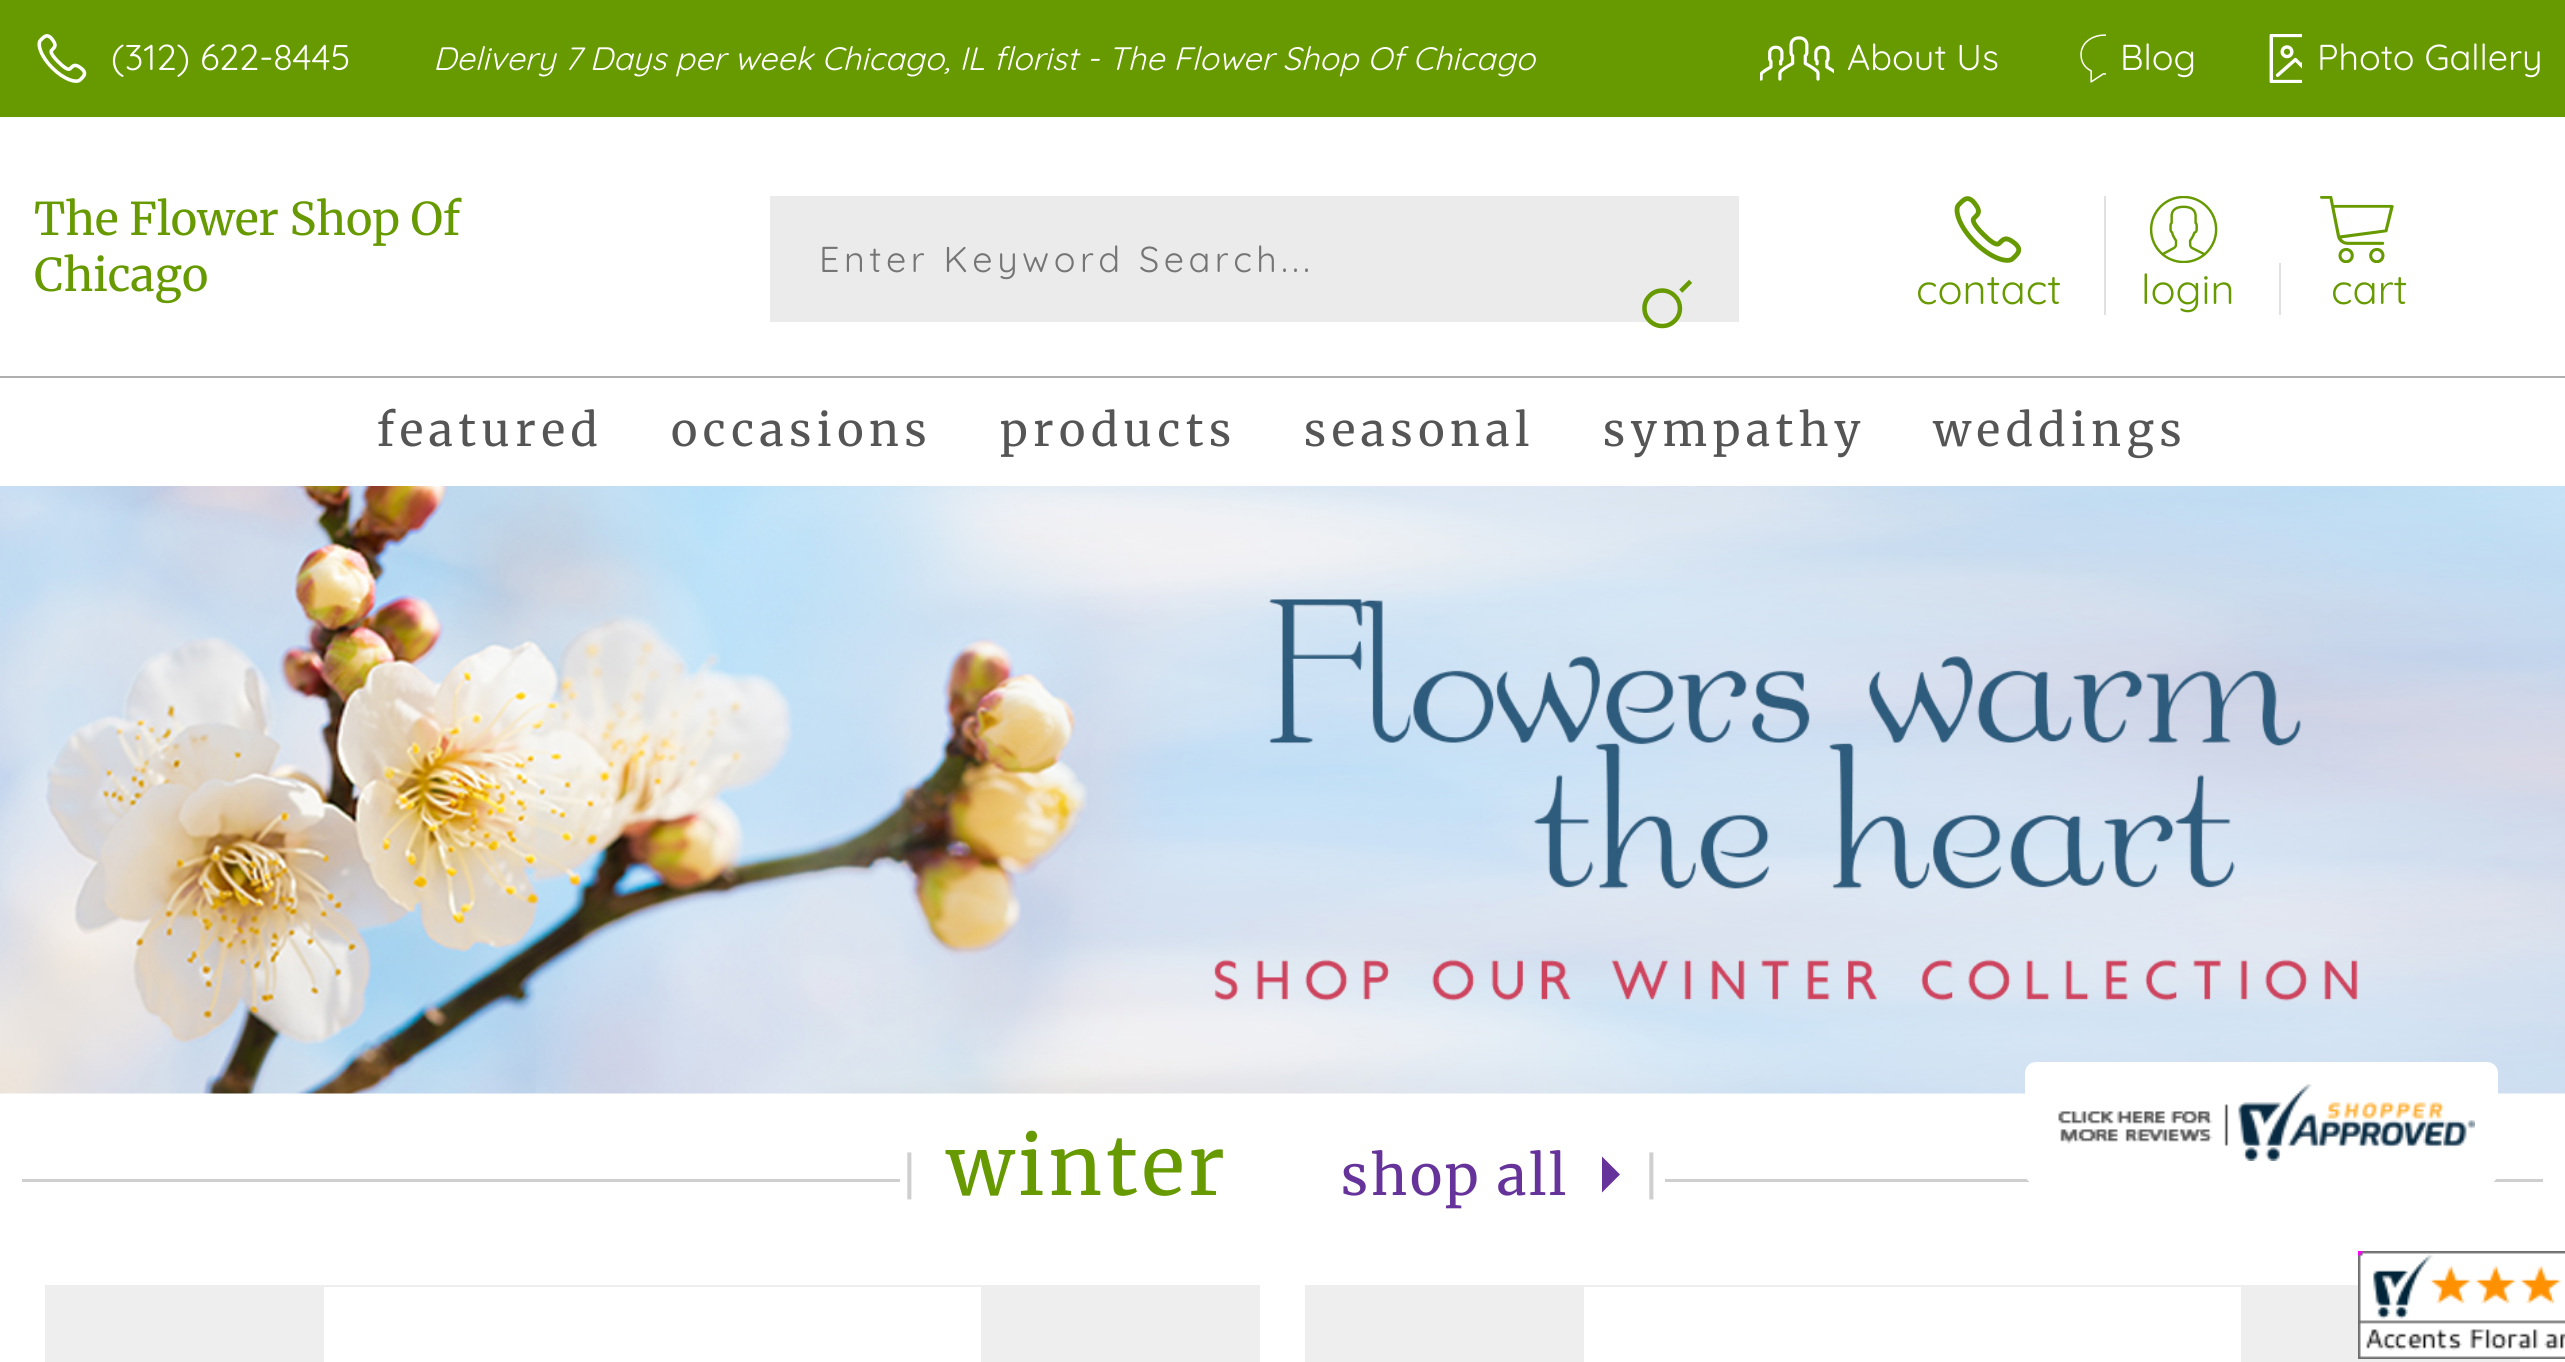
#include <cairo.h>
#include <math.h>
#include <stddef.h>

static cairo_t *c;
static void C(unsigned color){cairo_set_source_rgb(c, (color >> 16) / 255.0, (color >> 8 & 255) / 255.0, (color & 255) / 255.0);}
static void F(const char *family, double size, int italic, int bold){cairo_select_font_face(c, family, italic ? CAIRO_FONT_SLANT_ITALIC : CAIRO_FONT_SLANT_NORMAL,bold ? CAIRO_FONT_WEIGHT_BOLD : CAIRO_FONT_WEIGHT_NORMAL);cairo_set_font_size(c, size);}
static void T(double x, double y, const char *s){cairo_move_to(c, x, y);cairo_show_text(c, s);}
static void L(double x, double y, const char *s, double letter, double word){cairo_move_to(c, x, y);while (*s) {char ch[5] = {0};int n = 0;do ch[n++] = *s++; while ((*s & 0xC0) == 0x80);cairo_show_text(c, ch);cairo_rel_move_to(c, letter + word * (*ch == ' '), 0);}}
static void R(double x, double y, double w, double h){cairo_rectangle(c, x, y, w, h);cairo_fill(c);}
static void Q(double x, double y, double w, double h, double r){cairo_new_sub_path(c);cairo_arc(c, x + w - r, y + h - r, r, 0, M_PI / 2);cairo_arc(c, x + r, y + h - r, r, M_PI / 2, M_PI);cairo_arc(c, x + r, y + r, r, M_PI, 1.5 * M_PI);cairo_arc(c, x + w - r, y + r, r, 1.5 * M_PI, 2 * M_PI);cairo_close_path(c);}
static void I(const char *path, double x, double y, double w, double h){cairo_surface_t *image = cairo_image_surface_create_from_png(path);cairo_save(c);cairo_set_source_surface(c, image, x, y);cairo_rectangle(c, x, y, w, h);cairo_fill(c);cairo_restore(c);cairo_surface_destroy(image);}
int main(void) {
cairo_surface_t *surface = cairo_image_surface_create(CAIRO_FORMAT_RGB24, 2565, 1362);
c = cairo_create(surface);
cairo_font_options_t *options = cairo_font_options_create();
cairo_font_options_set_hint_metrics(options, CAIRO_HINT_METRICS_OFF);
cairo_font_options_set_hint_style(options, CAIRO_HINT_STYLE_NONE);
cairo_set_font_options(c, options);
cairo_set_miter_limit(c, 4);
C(0xffffff);
cairo_paint(c);
C(0x679a01);
R(0,0,2565,117);
I("1.png",37,34,50,49);
F("Quicksand",36,0,0);
C(0xffffff);
T(111,70,"(312) 622-8445");
F("Quicksand",32.4,1,0);
T(433,70,"Delivery 7 Days per week Chicago, IL florist - The Flower Shop Of Chicago");
I("2.png",1760,36,74,45);
F("Quicksand",36,0,0);
T(1847,70,"About Us");
I("3.png",2080,34,26,49);
T(2120,70,"Blog");
I("4.png",2269,34,33,49);
T(2317,70,"Photo Gallery");
F("Merriweather",45,0,0);
C(0x679a01);
T(34,235,"The Flower Shop Of");
T(34,291,"Chicago");
C(0xebebeb);
R(770,196,969,126);
F("Quicksand",36,0,0);
C(0x757575);
L(819,272,"Enter Keyword Search...",4.5,0);
F("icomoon",54,0,0);
C(0x679a01);
cairo_save(c);
cairo_translate(c,1694,281);
cairo_rotate(c,180 * M_PI / 180);
T(0,0,"'");
cairo_restore(c);
I("5.png",1954,196,68,67);
F("Quicksand",41.5,0,0);
T(1916,304,"contact");
C(0xe1e1e1);
R(2104,196,2,119);
R(2279,263,2,52);
I("6.png",2149,196,69,67);
C(0x679a01);
T(2141,304,"login");
I("7.png",2320,196,74,67);
T(2331,304,"cart");
C(0xafafaf);
R(0,376,2565,2);
F("Merriweather",45,0,0);
C(0x555555);
L(377,446,"featured",5.6,0);
L(671,446,"occasions",5.6,0);
L(1000,446,"products",5.6,0);
L(1304,446,"seasonal",5.6,0);
L(1603,446,"sympathy",5.6,0);
L(1933,446,"weddings",5.6,0);
I("8.png",0,486,2565,608);
C(0xcfcfcf);
R(22,1179,2521,3);
C(0xffffff);
R(900,1179,765,3);
F("Merriweather",49,0,0);
C(0xcfcfcf);
L(899,1195,"|",4,0);
F("Merriweather",81,0,0);
C(0x679a01);
L(946,1195,"winter",4,0);
F("Merriweather",55,0,0);
C(0x66339a);
L(1341,1195,"shop all",2.75,0);
cairo_new_path(c);
cairo_move_to(c,1602,1192.5);
cairo_line_to(c,1602,1156.5);
cairo_line_to(c,1620,1174.5);
cairo_close_path(c);
cairo_fill(c);
F("Merriweather",49,0,0);
C(0xcfcfcf);
L(1641,1195,"|",4,0);
C(0xeeeeee);
R(45,1285,1215,77);
C(0xffffff);
R(324,1287,657,75);
C(0xeeeeee);
R(1305,1285,1215,77);
C(0xffffff);
R(1584,1287,657,75);
Q(2025,1062,473,122,11);
cairo_fill(c);
I("9.png",2058,1084,417,77);
I("10.png",2358,1251,207,108);
cairo_surface_write_to_png(surface, "o.png");
cairo_font_options_destroy(options);
cairo_destroy(c);
cairo_surface_destroy(surface);
return 0;
}
